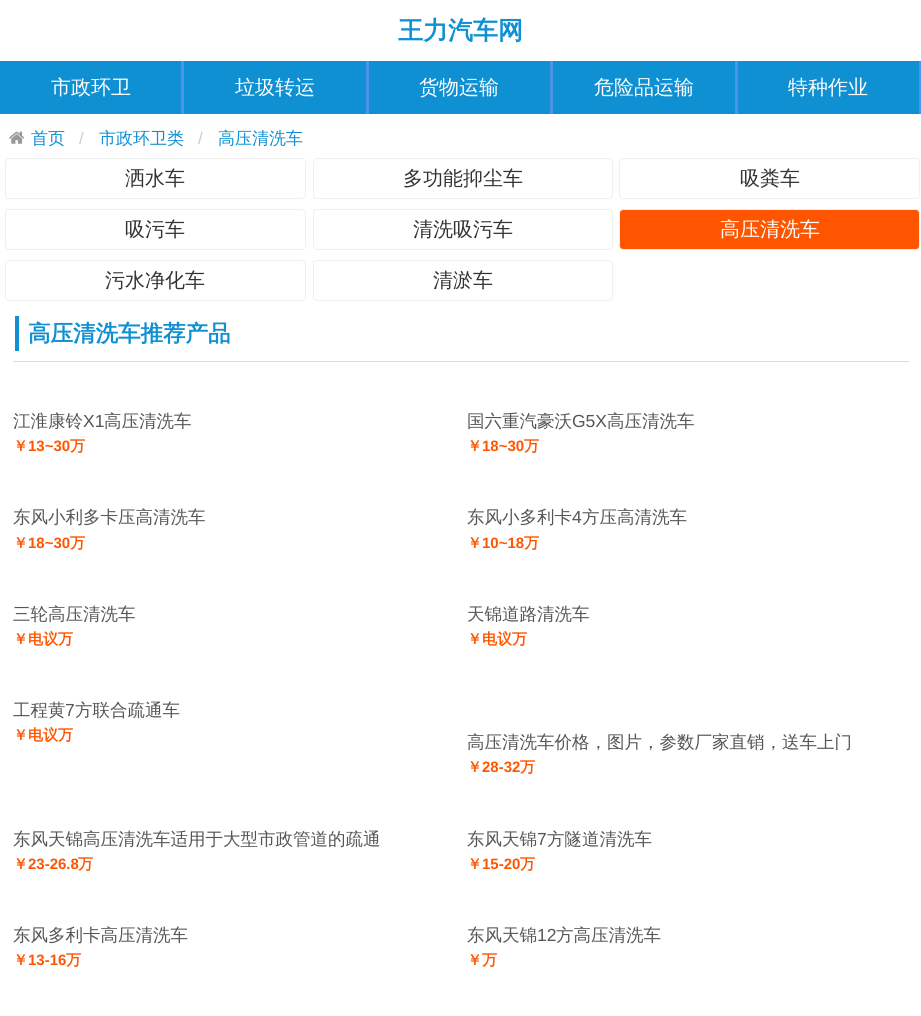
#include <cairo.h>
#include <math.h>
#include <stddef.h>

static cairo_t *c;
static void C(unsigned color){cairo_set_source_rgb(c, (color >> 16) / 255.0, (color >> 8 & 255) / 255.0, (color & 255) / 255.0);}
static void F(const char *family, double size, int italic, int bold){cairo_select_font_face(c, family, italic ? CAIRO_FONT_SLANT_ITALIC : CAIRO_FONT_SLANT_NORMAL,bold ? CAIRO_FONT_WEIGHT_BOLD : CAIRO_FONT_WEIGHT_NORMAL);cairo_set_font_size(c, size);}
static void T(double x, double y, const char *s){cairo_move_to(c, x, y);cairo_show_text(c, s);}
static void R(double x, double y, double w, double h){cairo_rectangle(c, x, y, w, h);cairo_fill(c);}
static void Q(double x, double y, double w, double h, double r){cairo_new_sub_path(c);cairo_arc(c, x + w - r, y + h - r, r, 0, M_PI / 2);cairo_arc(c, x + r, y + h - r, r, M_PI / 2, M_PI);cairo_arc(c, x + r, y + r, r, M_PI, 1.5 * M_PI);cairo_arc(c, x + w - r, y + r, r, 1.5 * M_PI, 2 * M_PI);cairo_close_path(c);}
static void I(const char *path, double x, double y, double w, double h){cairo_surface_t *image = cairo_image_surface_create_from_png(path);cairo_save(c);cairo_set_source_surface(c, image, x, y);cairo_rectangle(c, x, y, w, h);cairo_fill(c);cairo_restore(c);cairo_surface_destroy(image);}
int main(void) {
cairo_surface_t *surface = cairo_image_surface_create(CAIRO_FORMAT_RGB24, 921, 1016);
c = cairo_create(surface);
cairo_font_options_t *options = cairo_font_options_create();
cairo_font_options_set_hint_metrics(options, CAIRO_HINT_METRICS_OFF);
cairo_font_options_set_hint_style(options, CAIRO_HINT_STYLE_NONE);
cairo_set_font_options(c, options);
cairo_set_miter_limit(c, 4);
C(0xffffff);
cairo_paint(c);
F("WenQuanYi Zen Hei",25,0,1);
C(0x0e90d2);
T(398,39,"王力汽车网");
R(0,61,919,53);
C(0x4f93e8);
R(181,61,3,53);
F("WenQuanYi Zen Hei Medium",20,0,0);
C(0xffffff);
T(51,94,"市政环卫");
C(0x4f93e8);
R(366,61,3,53);
C(0xffffff);
T(235,94,"垃圾转运");
C(0x4f93e8);
R(550,61,3,53);
C(0xffffff);
T(419,94,"货物运输");
C(0x4f93e8);
R(735,61,3,53);
C(0xffffff);
T(594,94,"危险品运输");
C(0x4f93e8);
R(919,61,2,53);
C(0xffffff);
T(788,94,"特种作业");
I("1.png",9,131,16,13);
F("WenQuanYi Zen Hei Medium",17,0,0);
C(0x0e90d2);
T(31,144,"首页");
F("Liberation Sans",17,0,0);
C(0xcccccc);
T(79,144,"/");
F("WenQuanYi Zen Hei Medium",17,0,0);
C(0x0e90d2);
T(99,144,"市政环卫类");
F("Liberation Sans",17,0,0);
C(0xcccccc);
T(198,144,"/");
F("WenQuanYi Zen Hei Medium",17,0,0);
C(0x0e90d2);
T(218,144,"高压清洗车");
Q(5.5,158.5,300,40,3.5);
C(0xf0f0f0);
cairo_set_line_width(c,1);
cairo_stroke(c);
F("WenQuanYi Zen Hei Medium",20,0,0);
C(0x333333);
T(125,185,"洒水车");
Q(313.5,158.5,299,40,3.5);
C(0xf0f0f0);
cairo_stroke(c);
C(0x333333);
T(403,185,"多功能抑尘车");
Q(619.5,158.5,300,40,3.5);
C(0xf0f0f0);
cairo_stroke(c);
C(0x333333);
T(740,185,"吸粪车");
Q(5.5,209.5,300,40,3.5);
C(0xf0f0f0);
cairo_stroke(c);
C(0x333333);
T(125,236,"吸污车");
Q(313.5,209.5,299,40,3.5);
C(0xf0f0f0);
cairo_stroke(c);
C(0x333333);
T(413,236,"清洗吸污车");
C(0xff5500);
Q(619.5,209.5,300,40,3.5);
cairo_fill_preserve(c);
C(0xf0f0f0);
cairo_stroke(c);
C(0xffffff);
T(720,236,"高压清洗车");
Q(5.5,260.5,300,40,3.5);
C(0xf0f0f0);
cairo_stroke(c);
C(0x333333);
T(105,287,"污水净化车");
Q(313.5,260.5,299,40,3.5);
C(0xf0f0f0);
cairo_stroke(c);
C(0x333333);
T(433,287,"清淤车");
C(0xdedede);
R(13,361,896,1);
C(0x0e90d2);
R(15,316,4,35);
F("WenQuanYi Zen Hei",22.5,0,1);
T(28,341,"高压清洗车推荐产品");
F("WenQuanYi Zen Hei Medium",17.5,0,0);
C(0x555555);
T(13,427,"江淮康铃");
F("Liberation Sans",17.5,0,0);
T(83,427,"X1");
F("WenQuanYi Zen Hei Medium",17.5,0,0);
T(104,427,"高压清洗车");
F("WenQuanYi Zen Hei",15,0,1);
C(0xff5500);
T(13,451,"￥");
F("Liberation Sans",15,0,1);
T(28,451,"13~30");
F("WenQuanYi Zen Hei",15,0,1);
T(70,451,"万");
F("WenQuanYi Zen Hei Medium",17.5,0,0);
C(0x555555);
T(467,427,"国六重汽豪沃");
F("Liberation Sans",17.5,0,0);
T(572,427,"G5X");
F("WenQuanYi Zen Hei Medium",17.5,0,0);
T(607,427,"高压清洗车");
F("WenQuanYi Zen Hei",15,0,1);
C(0xff5500);
T(467,451,"￥");
F("Liberation Sans",15,0,1);
T(482,451,"18~30");
F("WenQuanYi Zen Hei",15,0,1);
T(524,451,"万");
F("WenQuanYi Zen Hei Medium",17.5,0,0);
C(0x555555);
T(13,523,"东风小利多卡压高清洗车");
F("WenQuanYi Zen Hei",15,0,1);
C(0xff5500);
T(13,548,"￥");
F("Liberation Sans",15,0,1);
T(28,548,"18~30");
F("WenQuanYi Zen Hei",15,0,1);
T(70,548,"万");
F("WenQuanYi Zen Hei Medium",17.5,0,0);
C(0x555555);
T(467,523,"东风小多利卡");
F("Liberation Sans",17.5,0,0);
T(572,523,"4");
F("WenQuanYi Zen Hei Medium",17.5,0,0);
T(582,523,"方压高清洗车");
F("WenQuanYi Zen Hei",15,0,1);
C(0xff5500);
T(467,548,"￥");
F("Liberation Sans",15,0,1);
T(482,548,"10~18");
F("WenQuanYi Zen Hei",15,0,1);
T(524,548,"万");
F("WenQuanYi Zen Hei Medium",17.5,0,0);
C(0x555555);
T(13,620,"三轮高压清洗车");
F("WenQuanYi Zen Hei",15,0,1);
C(0xff5500);
T(13,644,"￥电议万");
F("WenQuanYi Zen Hei Medium",17.5,0,0);
C(0x555555);
T(467,620,"天锦道路清洗车");
F("WenQuanYi Zen Hei",15,0,1);
C(0xff5500);
T(467,644,"￥电议万");
F("WenQuanYi Zen Hei Medium",17.5,0,0);
C(0x555555);
T(13,716,"工程黄");
F("Liberation Sans",17.5,0,0);
T(65,716,"7");
F("WenQuanYi Zen Hei Medium",17.5,0,0);
T(75,716,"方联合疏通车");
F("WenQuanYi Zen Hei",15,0,1);
C(0xff5500);
T(13,740,"￥电议万");
F("WenQuanYi Zen Hei Medium",17.5,0,0);
C(0x555555);
T(467,748,"高压清洗车价格，图片，参数厂家直销，送车上门");
F("WenQuanYi Zen Hei",15,0,1);
C(0xff5500);
T(467,772,"￥");
F("Liberation Sans",15,0,1);
T(482,772,"28-32");
F("WenQuanYi Zen Hei",15,0,1);
T(520,772,"万");
F("WenQuanYi Zen Hei Medium",17.5,0,0);
C(0x555555);
T(13,845,"东风天锦高压清洗车适用于大型市政管道的疏通");
F("WenQuanYi Zen Hei",15,0,1);
C(0xff5500);
T(13,869,"￥");
F("Liberation Sans",15,0,1);
T(28,869,"23-26.8");
F("WenQuanYi Zen Hei",15,0,1);
T(78,869,"万");
F("WenQuanYi Zen Hei Medium",17.5,0,0);
C(0x555555);
T(467,845,"东风天锦");
F("Liberation Sans",17.5,0,0);
T(537,845,"7");
F("WenQuanYi Zen Hei Medium",17.5,0,0);
T(547,845,"方隧道清洗车");
F("WenQuanYi Zen Hei",15,0,1);
C(0xff5500);
T(467,869,"￥");
F("Liberation Sans",15,0,1);
T(482,869,"15-20");
F("WenQuanYi Zen Hei",15,0,1);
T(520,869,"万");
F("WenQuanYi Zen Hei Medium",17.5,0,0);
C(0x555555);
T(13,941,"东风多利卡高压清洗车");
F("WenQuanYi Zen Hei",15,0,1);
C(0xff5500);
T(13,965,"￥");
F("Liberation Sans",15,0,1);
T(28,965,"13-16");
F("WenQuanYi Zen Hei",15,0,1);
T(66,965,"万");
F("WenQuanYi Zen Hei Medium",17.5,0,0);
C(0x555555);
T(467,941,"东风天锦");
F("Liberation Sans",17.5,0,0);
T(537,941,"12");
F("WenQuanYi Zen Hei Medium",17.5,0,0);
T(556,941,"方高压清洗车");
F("WenQuanYi Zen Hei",15,0,1);
C(0xff5500);
T(467,965,"￥万");
cairo_surface_write_to_png(surface, "o.png");
cairo_font_options_destroy(options);
cairo_destroy(c);
cairo_surface_destroy(surface);
return 0;
}
